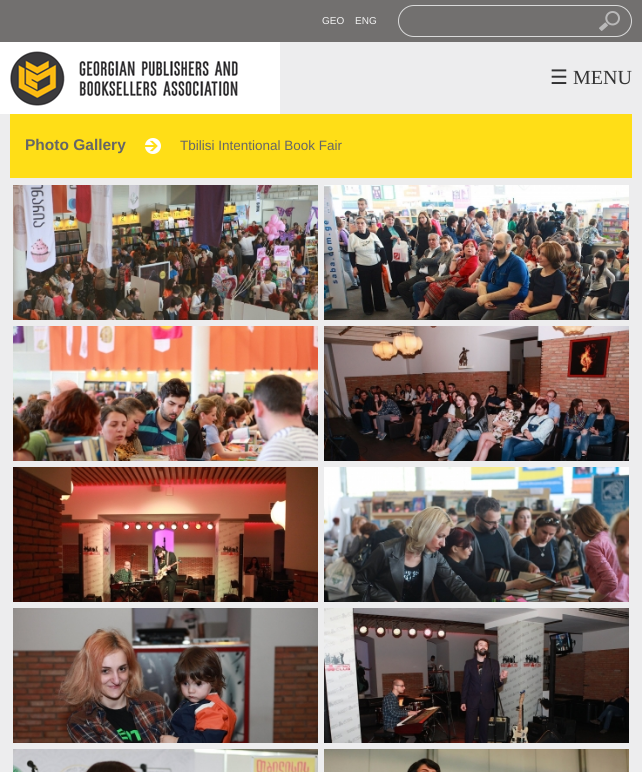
#include <cairo.h>
#include <math.h>
#include <stddef.h>

static cairo_t *c;
static void C(unsigned color){cairo_set_source_rgb(c, (color >> 16) / 255.0, (color >> 8 & 255) / 255.0, (color & 255) / 255.0);}
static void F(const char *family, double size, int italic, int bold){cairo_select_font_face(c, family, italic ? CAIRO_FONT_SLANT_ITALIC : CAIRO_FONT_SLANT_NORMAL,bold ? CAIRO_FONT_WEIGHT_BOLD : CAIRO_FONT_WEIGHT_NORMAL);cairo_set_font_size(c, size);}
static void T(double x, double y, const char *s){cairo_move_to(c, x, y);cairo_show_text(c, s);}
static void R(double x, double y, double w, double h){cairo_rectangle(c, x, y, w, h);cairo_fill(c);}
static void Q(double x, double y, double w, double h, double r){cairo_new_sub_path(c);cairo_arc(c, x + w - r, y + h - r, r, 0, M_PI / 2);cairo_arc(c, x + r, y + h - r, r, M_PI / 2, M_PI);cairo_arc(c, x + r, y + r, r, M_PI, 1.5 * M_PI);cairo_arc(c, x + w - r, y + r, r, 1.5 * M_PI, 2 * M_PI);cairo_close_path(c);}
static void I(const char *path, double x, double y, double w, double h){cairo_surface_t *image = cairo_image_surface_create_from_png(path);cairo_save(c);cairo_set_source_surface(c, image, x, y);cairo_rectangle(c, x, y, w, h);cairo_fill(c);cairo_restore(c);cairo_surface_destroy(image);}
int main(void) {
cairo_surface_t *surface = cairo_image_surface_create(CAIRO_FORMAT_RGB24, 642, 772);
c = cairo_create(surface);
cairo_font_options_t *options = cairo_font_options_create();
cairo_font_options_set_hint_metrics(options, CAIRO_HINT_METRICS_OFF);
cairo_font_options_set_hint_style(options, CAIRO_HINT_STYLE_NONE);
cairo_set_font_options(c, options);
cairo_set_miter_limit(c, 4);
C(0xededee);
cairo_paint(c);
C(0x72706f);
R(0,0,642,42);
F("Liberation Sans",10,0,0);
C(0xf2f2f2);
T(322,24,"GEO");
T(355,24,"ENG");
I("1.png",599,11,21,20);
Q(398.5,5.5,233,31,15.5);
C(0xdadada);
cairo_set_line_width(c,1);
cairo_stroke(c);
C(0xffffff);
R(0,42,280,72);
I("2.png",10,51,228,55);
F("DejaVu Sans",20,0,0);
C(0x333333);
T(550,84,"☰");
F("Liberation Serif",20,0,0);
T(573,84,"MENU");
C(0xffde17);
R(10,114,622,64);
F("Liberation Sans",15.5,0,1);
C(0x666666);
T(25,150,"Photo Gallery");
I("3.png",145,138,16,16);
F("Liberation Sans",13.5,0,0);
T(180,150,"Tbilisi Intentional Book Fair");
I("4.png",13,185,305,135);
I("5.png",324,185,305,135);
I("6.png",13,326,305,135);
I("7.png",324,326,305,135);
I("8.png",13,467,305,135);
I("9.png",324,467,305,135);
I("10.png",13,608,305,135);
I("11.png",324,608,305,135);
I("12.png",13,749,305,23);
I("13.png",324,749,305,23);
cairo_surface_write_to_png(surface, "o.png");
cairo_font_options_destroy(options);
cairo_destroy(c);
cairo_surface_destroy(surface);
return 0;
}
